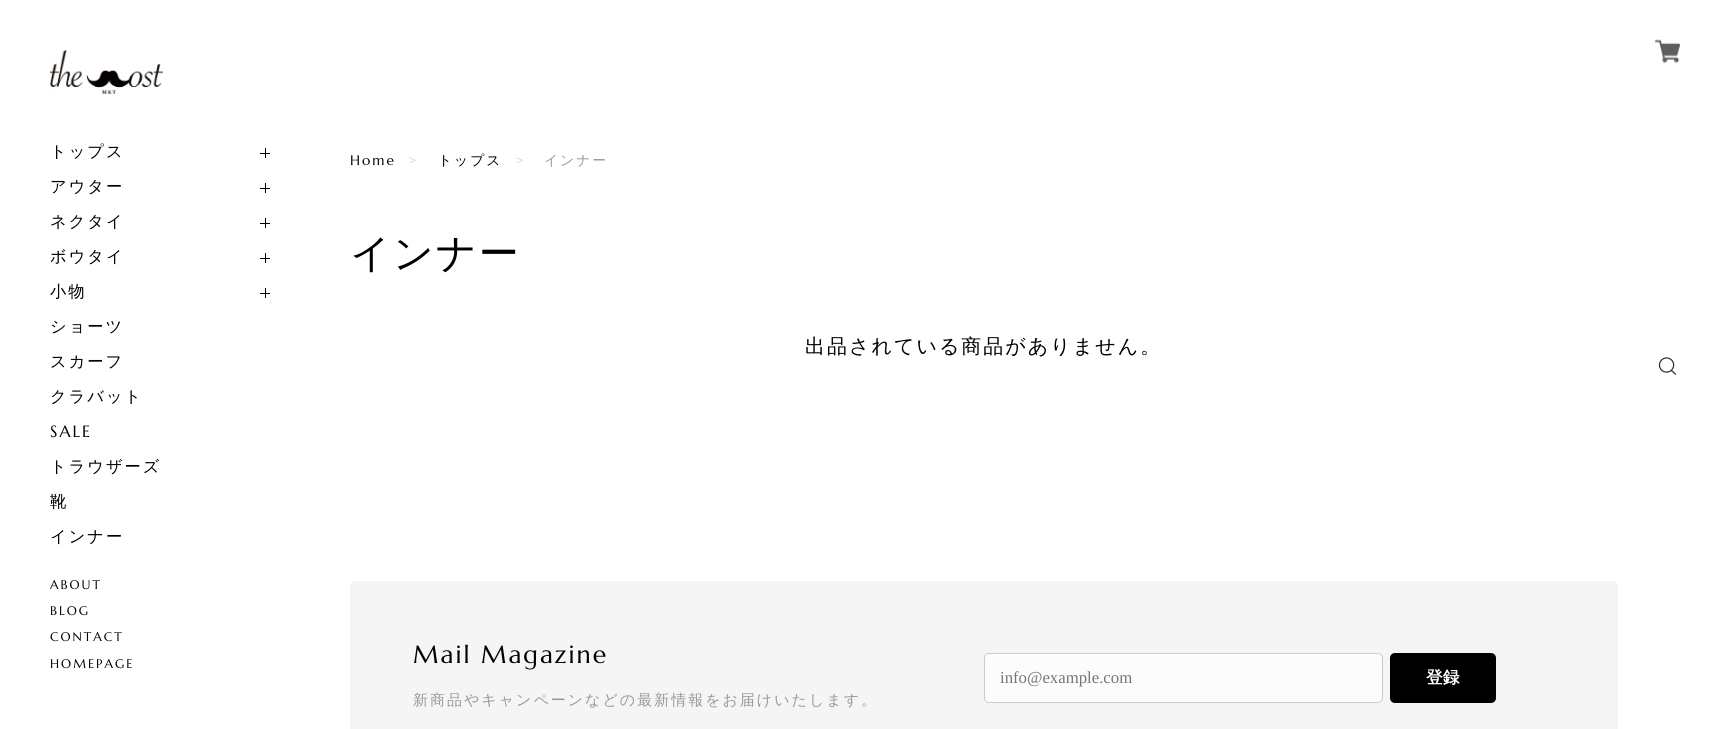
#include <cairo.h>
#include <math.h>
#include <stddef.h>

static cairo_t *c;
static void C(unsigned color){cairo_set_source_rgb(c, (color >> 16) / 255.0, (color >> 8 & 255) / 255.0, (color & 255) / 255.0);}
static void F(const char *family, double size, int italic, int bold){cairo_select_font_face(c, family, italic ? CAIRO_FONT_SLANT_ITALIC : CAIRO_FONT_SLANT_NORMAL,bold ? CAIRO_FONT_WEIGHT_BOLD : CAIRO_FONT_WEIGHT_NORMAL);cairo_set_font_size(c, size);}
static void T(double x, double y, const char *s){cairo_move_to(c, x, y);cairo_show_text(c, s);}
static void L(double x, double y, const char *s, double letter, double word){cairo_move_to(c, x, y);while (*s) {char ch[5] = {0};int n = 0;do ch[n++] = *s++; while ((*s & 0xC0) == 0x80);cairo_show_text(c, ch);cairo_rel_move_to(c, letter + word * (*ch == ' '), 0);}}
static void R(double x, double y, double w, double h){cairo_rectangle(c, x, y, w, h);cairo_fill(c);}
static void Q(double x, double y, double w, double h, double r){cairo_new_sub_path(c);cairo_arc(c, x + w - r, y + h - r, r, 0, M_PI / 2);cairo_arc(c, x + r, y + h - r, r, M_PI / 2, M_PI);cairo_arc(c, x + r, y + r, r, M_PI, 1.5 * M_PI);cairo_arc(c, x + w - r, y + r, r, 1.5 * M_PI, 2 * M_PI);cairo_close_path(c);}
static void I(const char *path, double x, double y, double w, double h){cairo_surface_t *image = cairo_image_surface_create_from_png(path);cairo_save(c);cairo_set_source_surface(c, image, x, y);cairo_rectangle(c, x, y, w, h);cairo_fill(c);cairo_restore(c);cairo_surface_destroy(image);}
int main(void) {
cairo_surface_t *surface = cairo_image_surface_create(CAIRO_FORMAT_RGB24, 1717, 729);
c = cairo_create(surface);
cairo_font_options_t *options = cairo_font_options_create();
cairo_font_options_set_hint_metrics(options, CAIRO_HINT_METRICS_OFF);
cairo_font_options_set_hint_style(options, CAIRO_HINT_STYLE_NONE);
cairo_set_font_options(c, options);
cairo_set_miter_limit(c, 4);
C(0xffffff);
cairo_paint(c);
I("1.png",50,50,113,44);
F("WenQuanYi Zen Hei Medium",16.25,0,0);
C(0x000000);
L(50,157,"トップス",2,0);
R(260,153,10,1);
R(265,148,1,10);
L(50,192,"アウター",2,0);
R(260,188,10,1);
R(265,183,1,10);
L(50,227,"ネクタイ",2,0);
R(260,223,10,1);
R(265,218,1,10);
L(50,262,"ボウタイ",2,0);
R(260,258,10,1);
R(265,253,1,10);
L(50,297,"小物",2,0);
R(260,293,10,1);
R(265,288,1,10);
L(50,332,"ショーツ",2,0);
L(50,367,"スカーフ",2,0);
L(50,402,"クラバット",2,0);
F("Marcellus",16.25,0,0);
L(50,437,"SALE",2,0);
F("WenQuanYi Zen Hei Medium",16.25,0,0);
L(50,472,"トラウザーズ",2,0);
L(50,507,"靴",2,0);
L(50,542,"インナー",2,0);
F("Marcellus",12.5,0,0);
L(50,589,"ABOUT",2,0);
L(50,615,"BLOG",2,0);
L(50,641,"CONTACT",2,0);
L(50,668,"HOMEPAGE",2,0);
F("Marcellus",13.75,0,0);
L(350,165,"Home",2,0);
C(0xcccccc);
L(408,165,">",2,0);
F("WenQuanYi Zen Hei Medium",13.75,0,0);
C(0x000000);
L(438,165,"トップス",2,0);
F("Marcellus",13.75,0,0);
C(0xcccccc);
L(515,165,">",2,0);
F("WenQuanYi Zen Hei Medium",13.75,0,0);
C(0x999999);
L(544,165,"インナー",2,0);
F("WenQuanYi Zen Hei Medium",40,0,0);
C(0x000000);
L(350,267,"インナー",2,0);
F("WenQuanYi Zen Hei Medium",20,0,0);
L(805,353,"出品されている商品がありません。",2,0);
C(0xf5f5f5);
Q(350,581,1268,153,5);
cairo_fill(c);
F("Marcellus",25,0,0);
C(0x000000);
L(413,663,"Mail Magazine",2,0);
F("WenQuanYi Zen Hei Medium",15,0,0);
C(0x999999);
L(413,705,"新商品やキャンペーンなどの最新情報をお届けいたします。",2,0);
C(0xfcfcfd);
Q(984.5,653.5,398,49,4.5);
cairo_fill_preserve(c);
C(0xcccccc);
cairo_set_line_width(c,1);
cairo_stroke(c);
F("Liberation Serif",16.75,0,0);
C(0x757575);
T(1000,683,"info@example.com");
C(0x000000);
Q(1390,653,106,50,5);
cairo_fill(c);
F("WenQuanYi Zen Hei",16.75,0,1);
C(0xffffff);
T(1426,683,"登録");
I("2.png",1655,39,25,24);
I("3.png",1658,357,19,18);
cairo_surface_write_to_png(surface, "o.png");
cairo_font_options_destroy(options);
cairo_destroy(c);
cairo_surface_destroy(surface);
return 0;
}
